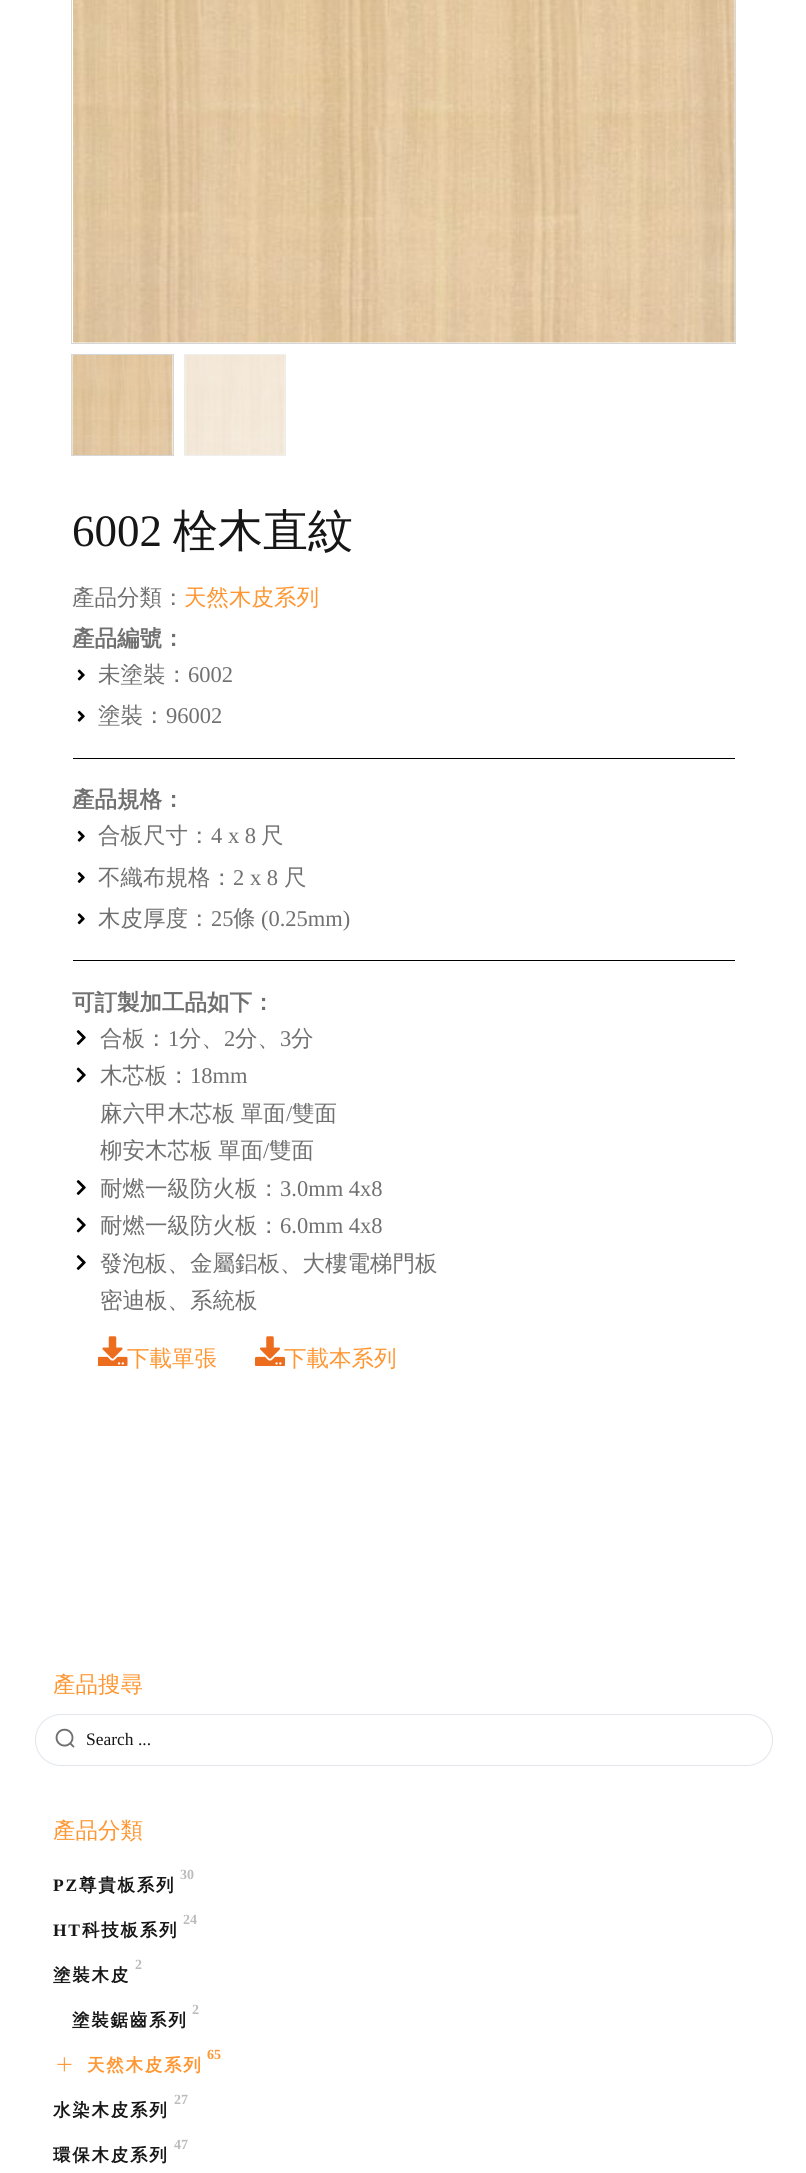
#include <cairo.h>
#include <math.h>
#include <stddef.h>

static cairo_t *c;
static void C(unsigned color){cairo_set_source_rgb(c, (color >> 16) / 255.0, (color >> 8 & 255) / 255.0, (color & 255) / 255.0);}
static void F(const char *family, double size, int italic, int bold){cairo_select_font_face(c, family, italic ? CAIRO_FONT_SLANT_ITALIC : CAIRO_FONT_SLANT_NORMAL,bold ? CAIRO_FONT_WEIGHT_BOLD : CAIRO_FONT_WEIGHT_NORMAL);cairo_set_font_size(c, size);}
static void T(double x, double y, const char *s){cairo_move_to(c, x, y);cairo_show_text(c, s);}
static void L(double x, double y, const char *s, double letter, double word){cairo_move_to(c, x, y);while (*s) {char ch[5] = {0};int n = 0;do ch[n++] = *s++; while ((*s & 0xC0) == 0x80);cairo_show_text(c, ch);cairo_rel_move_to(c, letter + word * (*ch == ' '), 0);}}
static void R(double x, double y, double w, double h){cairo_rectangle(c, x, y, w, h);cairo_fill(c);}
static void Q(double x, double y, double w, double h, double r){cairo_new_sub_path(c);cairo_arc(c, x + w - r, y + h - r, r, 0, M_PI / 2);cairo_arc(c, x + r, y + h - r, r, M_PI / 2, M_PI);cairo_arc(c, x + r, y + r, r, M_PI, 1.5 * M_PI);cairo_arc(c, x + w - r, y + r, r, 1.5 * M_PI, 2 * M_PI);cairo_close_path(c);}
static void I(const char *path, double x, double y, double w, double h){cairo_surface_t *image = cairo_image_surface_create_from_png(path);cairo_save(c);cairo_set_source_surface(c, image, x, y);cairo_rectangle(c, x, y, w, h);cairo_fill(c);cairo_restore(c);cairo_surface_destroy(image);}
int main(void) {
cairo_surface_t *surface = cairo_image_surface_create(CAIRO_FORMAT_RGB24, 806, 2173);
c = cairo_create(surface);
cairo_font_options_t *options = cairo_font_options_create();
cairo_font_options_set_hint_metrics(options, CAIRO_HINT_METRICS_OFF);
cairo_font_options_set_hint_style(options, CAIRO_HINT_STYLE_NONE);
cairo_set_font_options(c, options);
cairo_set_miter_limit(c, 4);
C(0xffffff);
cairo_paint(c);
cairo_rectangle(c,71.5,-.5,664,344);
C(0xd7d7d7);
cairo_set_line_width(c,1);
cairo_stroke(c);
I("1.png",73,0,662,343);
cairo_rectangle(c,71.5,354.5,102,101);
cairo_stroke(c);
I("2.png",72,355,101,100);
cairo_rectangle(c,184.5,354.5,101,101);
C(0xefefef);
cairo_stroke(c);
I("3.png",184,355,102,100);
F("Liberation Serif",45,0,0);
C(0x161616);
T(72,546,"6002");
F("WenQuanYi Zen Hei Medium",45,0,0);
T(173,546,"栓木直紋");
F("WenQuanYi Zen Hei Medium",22.5,0,0);
C(0x707070);
T(72,605,"產品分類：");
C(0xff9631);
T(184,605,"天然木皮系列");
F("WenQuanYi Zen Hei",22.5,0,1);
C(0x707070);
T(72,646,"產品編號：");
I("4.png",77,669,8,12);
F("WenQuanYi Zen Hei Medium",22.5,0,0);
T(98,682,"未塗裝：");
F("Liberation Serif",22.5,0,0);
T(188,682,"6002");
I("5.png",77,710,8,12);
F("WenQuanYi Zen Hei Medium",22.5,0,0);
T(98,723,"塗裝：");
F("Liberation Serif",22.5,0,0);
T(166,723,"96002");
C(0x000000);
R(73,758,662,1);
F("WenQuanYi Zen Hei",22.5,0,1);
C(0x707070);
T(72,807,"產品規格：");
I("5.png",77,830,8,12);
F("WenQuanYi Zen Hei Medium",22.5,0,0);
T(98,843,"合板尺寸：");
F("Liberation Serif",22.5,0,0);
T(211,843,"4 x 8");
F("WenQuanYi Zen Hei Medium",22.5,0,0);
T(261,843,"尺");
I("6.png",77,872,8,11);
T(98,885,"不織布規格：");
F("Liberation Serif",22.5,0,0);
T(233,885,"2 x 8");
F("WenQuanYi Zen Hei Medium",22.5,0,0);
T(284,885,"尺");
I("7.png",77,913,8,12);
T(98,926,"木皮厚度：");
F("Liberation Serif",22.5,0,0);
T(211,926,"25");
F("WenQuanYi Zen Hei Medium",22.5,0,0);
T(233,926,"條");
F("Liberation Serif",22.5,0,0);
T(261,926,"(0.25mm)");
C(0x000000);
R(73,960,662,1);
F("WenQuanYi Zen Hei",22.5,0,1);
C(0x707070);
T(72,1010,"可訂製加工品如下：");
I("8.png",76,1030,10,15);
F("WenQuanYi Zen Hei Medium",22.5,0,0);
T(100,1046,"合板：");
F("Liberation Serif",22.5,0,0);
T(168,1046,"1");
F("WenQuanYi Zen Hei Medium",22.5,0,0);
T(179,1046,"分、");
F("Liberation Serif",22.5,0,0);
T(224,1046,"2");
F("WenQuanYi Zen Hei Medium",22.5,0,0);
T(235,1046,"分、");
F("Liberation Serif",22.5,0,0);
T(280,1046,"3");
F("WenQuanYi Zen Hei Medium",22.5,0,0);
T(291,1046,"分");
I("9.png",76,1067,10,16);
T(100,1083,"木芯板：");
F("Liberation Serif",22.5,0,0);
T(190,1083,"18mm");
F("WenQuanYi Zen Hei Medium",22.5,0,0);
L(100,1121,"麻六甲木芯板 單面",0,-1);
F("Liberation Serif",22.5,0,0);
T(286,1121,"/");
F("WenQuanYi Zen Hei Medium",22.5,0,0);
T(292,1121,"雙面");
L(100,1158,"柳安木芯板 單面",0,-1);
F("Liberation Serif",22.5,0,0);
T(263,1158,"/");
F("WenQuanYi Zen Hei Medium",22.5,0,0);
T(269,1158,"雙面");
I("8.png",76,1180,10,15);
T(100,1196,"耐燃一級防火板：");
F("Liberation Serif",22.5,0,0);
T(280,1196,"3.0mm 4x8");
I("9.png",76,1217,10,16);
F("WenQuanYi Zen Hei Medium",22.5,0,0);
T(100,1233,"耐燃一級防火板：");
F("Liberation Serif",22.5,0,0);
T(280,1233,"6.0mm 4x8");
I("8.png",76,1255,10,15);
F("WenQuanYi Zen Hei Medium",22.5,0,0);
T(100,1271,"發泡板、金屬鋁板、大樓電梯門板");
T(100,1308,"密迪板、系統板");
C(0xff9631);
T(127,1366,"下載單張");
I("10.png",98,1336,30,30);
T(284,1366,"下載本系列");
I("11.png",255,1336,30,30);
T(53,1692,"產品搜尋");
Q(35.5,1714.5,737,51,25.5);
C(0xe1e5eb);
cairo_stroke(c);
I("12.png",55,1728,20,20);
F("Liberation Serif",17.5,0,0);
C(0x161616);
T(86,1745,"Search ...");
F("WenQuanYi Zen Hei Medium",22.5,0,0);
C(0xff9631);
T(53,1838,"產品分類");
F("Liberation Serif",14,0,1);
C(0xbbbbbb);
T(180,1879,"30");
F("Liberation Serif",17.5,0,1);
C(0x161616);
L(53,1891,"PZ",1.75,0);
F("WenQuanYi Zen Hei",17.5,0,1);
L(79,1891,"尊貴板系列",1.75,0);
F("Liberation Serif",14,0,1);
C(0xbbbbbb);
T(183,1924,"24");
F("Liberation Serif",17.5,0,1);
C(0x161616);
L(53,1936,"HT",1.75,0);
F("WenQuanYi Zen Hei",17.5,0,1);
L(82,1936,"科技板系列",1.75,0);
F("Liberation Serif",14,0,1);
C(0xbbbbbb);
T(135,1969,"2");
F("WenQuanYi Zen Hei",17.5,0,1);
C(0x161616);
L(53,1981,"塗裝木皮",1.75,0);
F("Liberation Serif",14,0,1);
C(0xbbbbbb);
T(192,2014,"2");
F("WenQuanYi Zen Hei",17.5,0,1);
C(0x161616);
L(72,2026,"塗裝鋸齒系列",1.75,0);
F("Liberation Serif",14,0,1);
C(0xff9631);
T(207,2059,"65");
I("13.png",57,2057,15,15);
F("WenQuanYi Zen Hei",17.5,0,1);
L(87,2071,"天然木皮系列",1.75,0);
F("Liberation Serif",14,0,1);
C(0xbbbbbb);
T(174,2104,"27");
F("WenQuanYi Zen Hei",17.5,0,1);
C(0x161616);
L(53,2116,"水染木皮系列",1.75,0);
F("Liberation Serif",14,0,1);
C(0xbbbbbb);
T(174,2149,"47");
F("WenQuanYi Zen Hei",17.5,0,1);
C(0x161616);
L(53,2161,"環保木皮系列",1.75,0);
cairo_surface_write_to_png(surface, "o.png");
cairo_font_options_destroy(options);
cairo_destroy(c);
cairo_surface_destroy(surface);
return 0;
}
